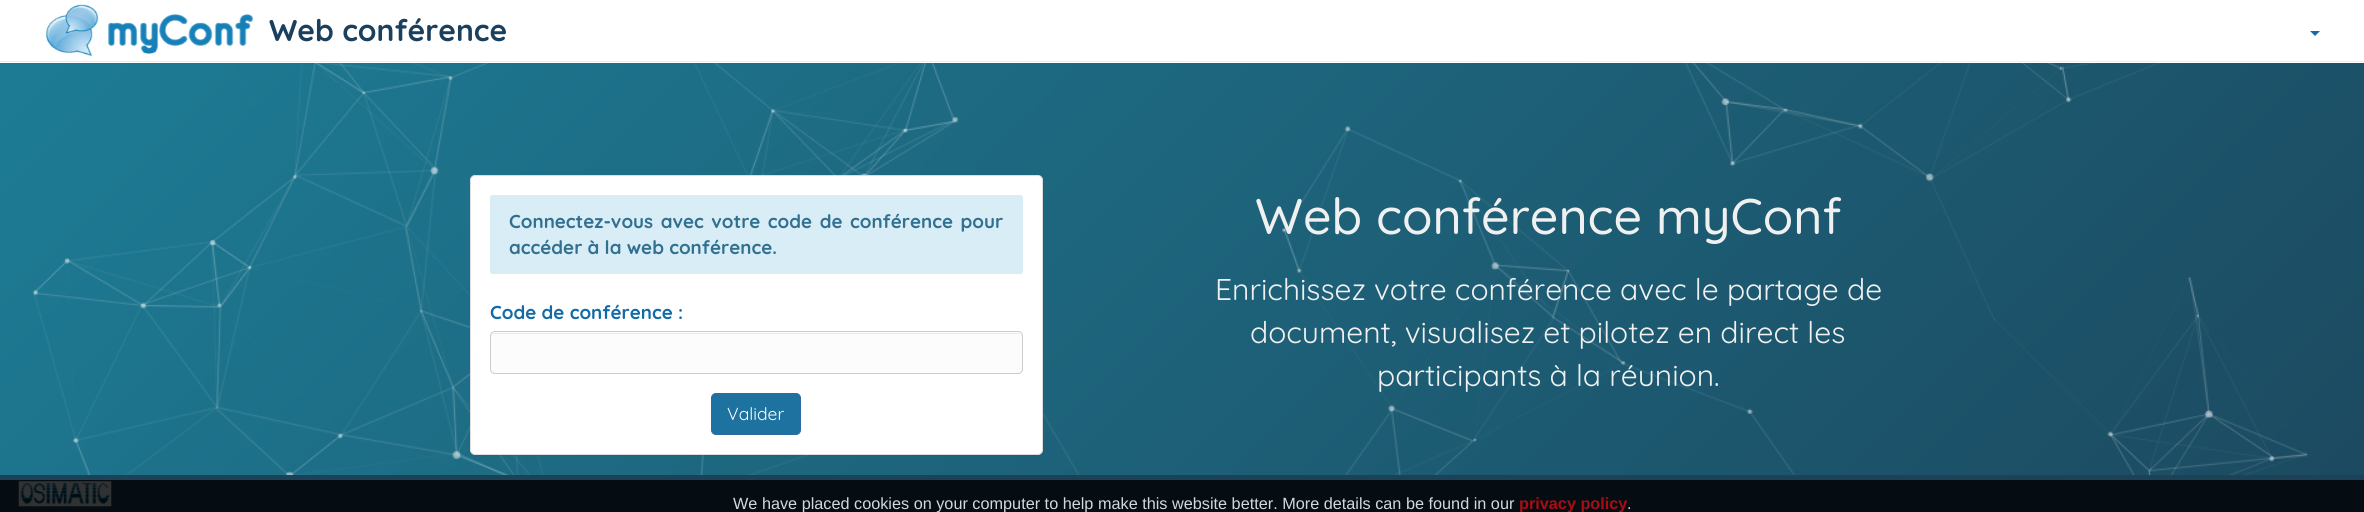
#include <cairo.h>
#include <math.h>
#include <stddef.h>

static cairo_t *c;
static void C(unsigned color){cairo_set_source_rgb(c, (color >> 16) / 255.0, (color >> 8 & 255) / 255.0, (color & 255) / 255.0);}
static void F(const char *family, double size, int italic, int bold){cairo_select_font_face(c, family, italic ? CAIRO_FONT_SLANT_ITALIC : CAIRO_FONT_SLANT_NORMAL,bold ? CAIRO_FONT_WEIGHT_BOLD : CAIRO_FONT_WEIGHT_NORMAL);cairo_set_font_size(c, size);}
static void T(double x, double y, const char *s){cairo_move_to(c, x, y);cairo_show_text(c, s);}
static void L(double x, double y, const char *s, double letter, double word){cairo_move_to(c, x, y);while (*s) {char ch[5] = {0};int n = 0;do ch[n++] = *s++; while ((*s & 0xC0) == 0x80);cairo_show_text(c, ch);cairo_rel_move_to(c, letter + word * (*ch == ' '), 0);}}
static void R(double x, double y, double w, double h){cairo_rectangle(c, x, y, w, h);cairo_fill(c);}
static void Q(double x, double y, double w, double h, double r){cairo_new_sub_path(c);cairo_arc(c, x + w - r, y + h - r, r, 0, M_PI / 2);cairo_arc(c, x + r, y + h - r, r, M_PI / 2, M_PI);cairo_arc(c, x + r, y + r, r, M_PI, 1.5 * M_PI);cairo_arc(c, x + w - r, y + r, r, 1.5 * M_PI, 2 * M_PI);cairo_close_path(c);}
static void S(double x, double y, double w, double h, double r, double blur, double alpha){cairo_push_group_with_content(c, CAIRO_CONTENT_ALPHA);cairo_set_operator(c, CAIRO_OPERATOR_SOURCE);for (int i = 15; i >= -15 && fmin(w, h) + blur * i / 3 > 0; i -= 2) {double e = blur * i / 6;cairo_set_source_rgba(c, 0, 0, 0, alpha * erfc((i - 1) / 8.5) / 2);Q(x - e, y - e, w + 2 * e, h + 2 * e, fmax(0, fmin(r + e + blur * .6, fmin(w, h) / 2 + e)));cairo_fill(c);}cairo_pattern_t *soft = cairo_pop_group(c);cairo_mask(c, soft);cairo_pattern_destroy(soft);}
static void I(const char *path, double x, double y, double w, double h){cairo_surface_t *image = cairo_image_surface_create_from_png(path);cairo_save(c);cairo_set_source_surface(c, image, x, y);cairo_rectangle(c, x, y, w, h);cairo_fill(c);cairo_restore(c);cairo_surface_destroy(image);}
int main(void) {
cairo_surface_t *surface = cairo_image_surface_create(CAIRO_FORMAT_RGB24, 2364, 512);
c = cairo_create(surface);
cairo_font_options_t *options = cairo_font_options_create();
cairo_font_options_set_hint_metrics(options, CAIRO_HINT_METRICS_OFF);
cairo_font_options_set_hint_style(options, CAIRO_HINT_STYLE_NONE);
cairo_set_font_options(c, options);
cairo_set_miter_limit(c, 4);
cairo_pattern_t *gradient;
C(0xffffff);
cairo_paint(c);
C(0xededed);
R(0,61,2364,1);
I("1.png",46,4,208,52);
F("Quicksand",30,0,1);
C(0x1b405e);
T(269,41,"Web conférence");
C(0x126aa7);
cairo_new_path(c);
cairo_move_to(c,2310,31);
cairo_line_to(c,2320,31);
cairo_line_to(c,2315,36);
cairo_close_path(c);
cairo_fill(c);
gradient = cairo_pattern_create_linear(2006,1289,359,-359);
cairo_pattern_add_color_stop_rgba(gradient,0,0.11,0.259,0.345,1);
cairo_pattern_add_color_stop_rgba(gradient,1,0.114,0.49,0.588,1);
cairo_set_source(c,gradient);
cairo_pattern_destroy(gradient);
R(0,63,2364,412);
I("2.png",32,63,2276,412);
C(0x000000);
S(470,176,573,280,5,.5,.05);
C(0xffffff);
Q(470.5,175.5,572,279,4.5);
cairo_fill_preserve(c);
C(0xdddddd);
cairo_set_line_width(c,1);
cairo_stroke(c);
C(0xd9edf7);
Q(490,195,533,79,2.5);
cairo_fill(c);
F("Quicksand",18.75,0,1);
C(0x31708f);
L(509,228,"Connectez-vous avec votre code de conférence pour",0,2.25);
T(509,254,"accéder à la web conférence.");
C(0x126aa7);
T(490,319,"Code de conférence :");
C(0xfcfcfc);
Q(490,331,533,43,5);
cairo_fill(c);
C(0xe9e9e9);
cairo_new_path(c);
cairo_move_to(c,495,334);
cairo_line_to(c,1018,334);
cairo_curve_to(c,1020,334,1021,335,1021,338);
cairo_line_to(c,1021,337);
cairo_curve_to(c,1021,335,1019,333,1017,333);
cairo_line_to(c,495,333);
cairo_curve_to(c,493,333,491,335,491,337);
cairo_line_to(c,491,338);
cairo_curve_to(c,491,335,493,334,495,334);
cairo_close_path(c);
cairo_fill(c);
Q(490.5,331.5,532,42,4.5);
C(0xcccccc);
cairo_stroke(c);
C(0x1d729f);
Q(711.5,393.5,89,41,4.5);
cairo_fill_preserve(c);
C(0x2e6da4);
cairo_stroke(c);
F("Quicksand",17.5,0,0);
C(0xffffff);
T(727,420,"Valider");
F("Quicksand Medium",50,0,0);
C(0xf0f0f0);
T(1255,234,"Web conférence myConf");
F("Quicksand",30,0,0);
T(1215,300,"Enrichissez votre conférence avec le partage de");
T(1250,343,"document, visualisez et pilotez en direct les");
T(1377,386,"participants à la réunion.");
C(0x1c4258);
R(0,475,2364,37);
I("3.png",18,481,94,26);
cairo_set_source_rgba(c,0,0,0,0.8);
R(0,480,2364,32);
F("Liberation Sans",16.25,0,0);
C(0xd2d9de);
T(733,509,"We have placed cookies on your computer to help make this website better. More details can be found in our");
F("Liberation Sans",16.25,0,1);
C(0xa70d12);
T(1519,509,"privacy policy");
F("Liberation Sans",16.25,0,0);
C(0xd2d9de);
T(1627,509,".");
cairo_surface_write_to_png(surface, "o.png");
cairo_font_options_destroy(options);
cairo_destroy(c);
cairo_surface_destroy(surface);
return 0;
}
